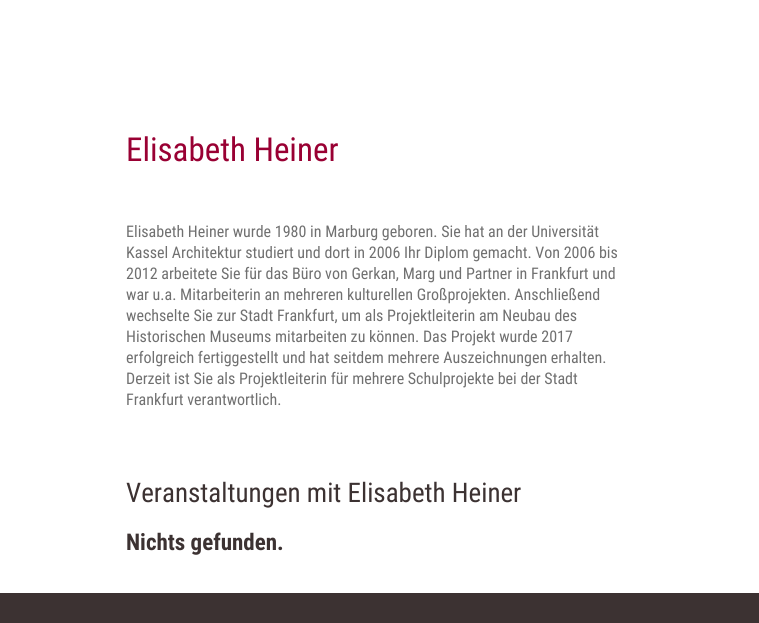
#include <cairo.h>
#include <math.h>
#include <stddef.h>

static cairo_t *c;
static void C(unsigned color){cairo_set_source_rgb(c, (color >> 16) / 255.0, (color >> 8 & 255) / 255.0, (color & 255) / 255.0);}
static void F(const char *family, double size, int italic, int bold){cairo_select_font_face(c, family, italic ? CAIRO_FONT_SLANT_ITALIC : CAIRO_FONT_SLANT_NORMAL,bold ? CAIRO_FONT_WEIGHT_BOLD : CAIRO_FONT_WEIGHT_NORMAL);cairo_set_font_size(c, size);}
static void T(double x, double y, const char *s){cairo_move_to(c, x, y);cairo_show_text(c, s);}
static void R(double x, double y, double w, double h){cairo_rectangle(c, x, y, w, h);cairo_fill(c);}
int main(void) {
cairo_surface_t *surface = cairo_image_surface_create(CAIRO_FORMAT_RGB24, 759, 623);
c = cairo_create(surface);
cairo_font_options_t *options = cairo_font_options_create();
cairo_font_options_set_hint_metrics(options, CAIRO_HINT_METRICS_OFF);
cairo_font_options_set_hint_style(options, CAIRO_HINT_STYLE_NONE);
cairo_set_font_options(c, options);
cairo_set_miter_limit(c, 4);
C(0xffffff);
cairo_paint(c);
F("Roboto Condensed",33,0,0);
C(0x990033);
T(126,161,"Elisabeth Heiner");
F("Roboto Condensed",16,0,0);
C(0x707070);
T(126,237,"Elisabeth Heiner wurde 1980 in Marburg geboren. Sie hat an der Universität");
T(126,258,"Kassel Architektur studiert und dort in 2006 Ihr Diplom gemacht. Von 2006 bis");
T(126,279,"2012 arbeitete Sie für das Büro von Gerkan, Marg und Partner in Frankfurt und");
T(126,300,"war u.a. Mitarbeiterin an mehreren kulturellen Großprojekten. Anschließend");
T(126,321,"wechselte Sie zur Stadt Frankfurt, um als Projektleiterin am Neubau des");
T(126,342,"Historischen Museums mitarbeiten zu können. Das Projekt wurde 2017");
T(126,363,"erfolgreich fertiggestellt und hat seitdem mehrere Auszeichnungen erhalten.");
T(126,384,"Derzeit ist Sie als Projektleiterin für mehrere Schulprojekte bei der Stadt");
T(126,405,"Frankfurt verantwortlich.");
F("Roboto Condensed",27,0,0);
C(0x3c3232);
T(126,502,"Veranstaltungen mit Elisabeth Heiner");
F("Roboto Condensed",23,0,1);
T(126,550,"Nichts gefunden.");
R(0,593,759,30);
cairo_surface_write_to_png(surface, "o.png");
cairo_font_options_destroy(options);
cairo_destroy(c);
cairo_surface_destroy(surface);
return 0;
}
